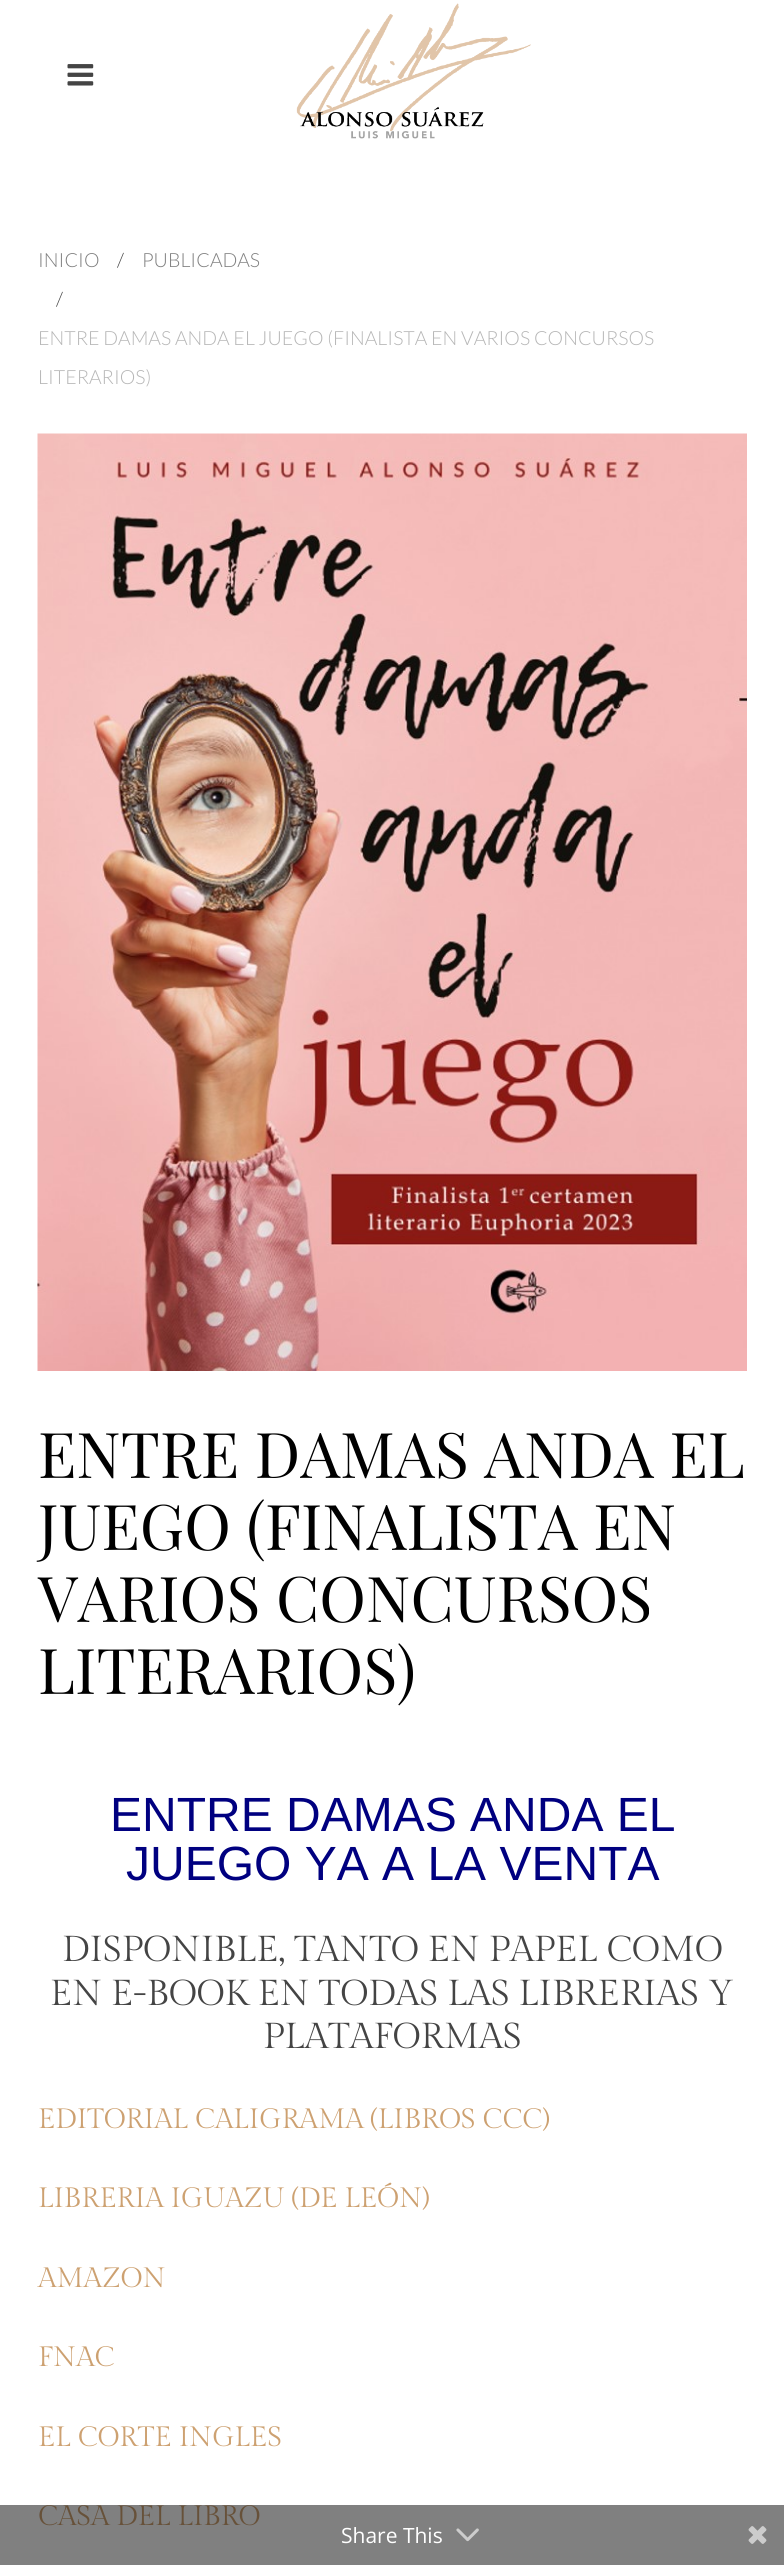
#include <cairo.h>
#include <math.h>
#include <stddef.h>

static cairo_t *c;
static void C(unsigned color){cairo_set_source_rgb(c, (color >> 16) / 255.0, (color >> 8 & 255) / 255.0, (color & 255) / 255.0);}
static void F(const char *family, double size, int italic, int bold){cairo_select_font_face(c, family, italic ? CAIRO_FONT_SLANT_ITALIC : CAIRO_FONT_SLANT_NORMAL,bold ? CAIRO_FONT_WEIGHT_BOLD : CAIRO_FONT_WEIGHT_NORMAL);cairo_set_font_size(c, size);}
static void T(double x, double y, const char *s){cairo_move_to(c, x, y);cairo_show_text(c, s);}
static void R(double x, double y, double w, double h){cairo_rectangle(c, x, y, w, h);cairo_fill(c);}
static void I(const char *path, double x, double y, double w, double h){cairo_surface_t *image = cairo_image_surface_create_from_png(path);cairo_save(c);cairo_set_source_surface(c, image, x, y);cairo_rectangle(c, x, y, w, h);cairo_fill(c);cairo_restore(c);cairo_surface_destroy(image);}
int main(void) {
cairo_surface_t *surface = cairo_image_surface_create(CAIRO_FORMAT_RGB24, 784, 2565);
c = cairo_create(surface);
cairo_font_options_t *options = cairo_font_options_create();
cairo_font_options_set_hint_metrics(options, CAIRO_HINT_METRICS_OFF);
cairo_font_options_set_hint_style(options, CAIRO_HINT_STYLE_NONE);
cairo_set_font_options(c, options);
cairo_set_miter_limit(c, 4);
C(0xffffff);
cairo_paint(c);
C(0x808080);
R(0,2505,784,60);
I("1.png",67,64,27,22);
I("2.png",296,3,235,136);
F("Lato Light",19.5,0,0);
C(0x7f7f7f);
T(38,267,"INICIO");
C(0x444444);
T(117,267,"/");
C(0x7f7f7f);
T(142,267,"PUBLICADAS");
C(0x444444);
T(56,306,"/");
C(0xb6b6b6);
T(38,345,"ENTRE DAMAS ANDA EL JUEGO (FINALISTA EN VARIOS CONCURSOS");
T(38,384,"LITERARIOS)");
I("3.png",37,433,710,938);
F("Playfair Display",63,0,0);
C(0x000000);
T(38,1478,"ENTRE DAMAS ANDA EL");
T(38,1550,"JUEGO (FINALISTA EN");
T(38,1622,"VARIOS CONCURSOS");
T(38,1694,"LITERARIOS)");
F("Liberation Sans",48,0,0);
C(0x000080);
T(110,1831,"ENTRE DAMAS ANDA EL");
T(126,1880,"JUEGO YA A LA VENTA");
F("Gilda Display",36,0,0);
C(0x444444);
T(62,1961,"DISPONIBLE, TANTO EN PAPEL COMO");
T(50,2005,"EN E-BOOK EN TODAS LAS LIBRERIAS Y");
T(263,2048,"PLATAFORMAS");
F("Gilda Display",28,0,0);
C(0xcda171);
T(38,2128,"EDITORIAL CALIGRAMA (LIBROS CCC)");
T(38,2207,"LIBRERIA IGUAZU (DE LEÓN)");
T(38,2287,"AMAZON");
T(38,2366,"FNAC");
T(38,2446,"EL CORTE INGLES");
C(0x675139);
T(38,2525,"CASA DEL LIBRO");
F("Open Sans",21,0,0);
C(0xffffff);
T(341,2543,"Share This");
I("4.png",456,2528,23,14);
I("5.png",748,2526,19,18);
cairo_surface_write_to_png(surface, "o.png");
cairo_font_options_destroy(options);
cairo_destroy(c);
cairo_surface_destroy(surface);
return 0;
}
